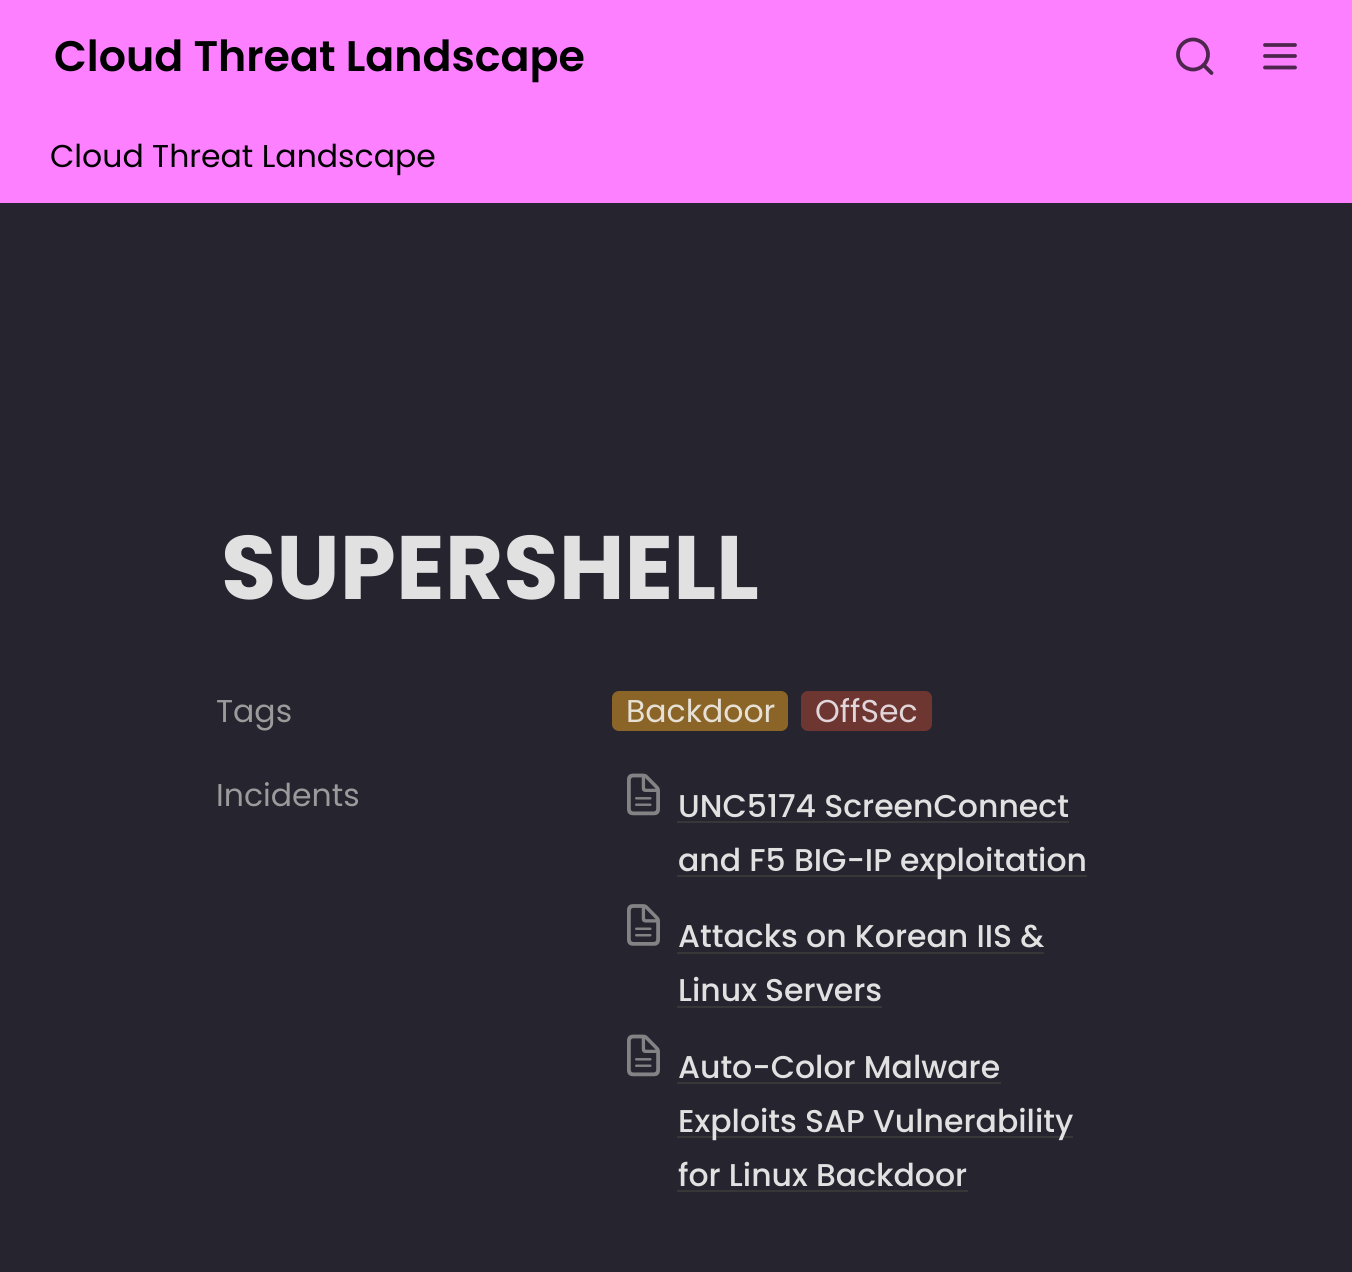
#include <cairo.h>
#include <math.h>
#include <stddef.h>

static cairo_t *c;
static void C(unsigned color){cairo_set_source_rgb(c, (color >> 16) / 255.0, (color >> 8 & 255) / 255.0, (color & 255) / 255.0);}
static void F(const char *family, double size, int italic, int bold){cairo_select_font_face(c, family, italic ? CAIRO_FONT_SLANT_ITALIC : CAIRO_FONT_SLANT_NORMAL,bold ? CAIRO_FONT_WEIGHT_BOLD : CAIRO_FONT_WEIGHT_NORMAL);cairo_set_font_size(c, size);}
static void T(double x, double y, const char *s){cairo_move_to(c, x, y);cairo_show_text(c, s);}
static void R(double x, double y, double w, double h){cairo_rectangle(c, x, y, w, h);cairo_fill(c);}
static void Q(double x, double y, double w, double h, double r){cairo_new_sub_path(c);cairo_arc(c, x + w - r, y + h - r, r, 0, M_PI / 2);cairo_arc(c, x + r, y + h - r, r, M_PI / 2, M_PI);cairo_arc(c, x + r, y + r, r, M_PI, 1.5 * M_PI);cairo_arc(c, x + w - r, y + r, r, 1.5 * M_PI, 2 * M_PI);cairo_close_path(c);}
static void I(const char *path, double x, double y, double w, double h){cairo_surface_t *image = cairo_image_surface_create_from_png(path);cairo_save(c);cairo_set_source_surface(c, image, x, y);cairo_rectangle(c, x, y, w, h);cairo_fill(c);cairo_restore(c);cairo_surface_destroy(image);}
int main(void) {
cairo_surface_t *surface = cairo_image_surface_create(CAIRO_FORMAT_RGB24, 1352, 1272);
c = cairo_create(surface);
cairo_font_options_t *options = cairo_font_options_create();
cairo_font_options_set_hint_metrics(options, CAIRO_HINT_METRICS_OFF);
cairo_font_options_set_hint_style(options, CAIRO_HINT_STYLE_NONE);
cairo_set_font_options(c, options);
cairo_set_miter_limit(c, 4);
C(0x25242f);
cairo_paint(c);
C(0xfc80ff);
R(0,0,1352,203);
F("Poppins SemiBold",42.75,0,0);
C(0x000000);
T(54,71,"Cloud Threat Landscape");
cairo_new_path(c);
cairo_arc(c,1193,54.5,15,0,2 * M_PI);
C(0x4c264d);
cairo_set_line_width(c,3.8);
cairo_stroke(c);
cairo_new_path(c);
cairo_move_to(c,1211.5,73);
cairo_line_to(c,1203.5,65);
cairo_set_line_cap(c,CAIRO_LINE_CAP_ROUND);
cairo_set_line_join(c,CAIRO_LINE_JOIN_ROUND);
cairo_stroke(c);
cairo_new_path(c);
cairo_move_to(c,1265,56);
cairo_line_to(c,1295,56);
cairo_move_to(c,1265,45);
cairo_line_to(c,1295,45);
cairo_move_to(c,1265,67.5);
cairo_line_to(c,1295,67.5);
cairo_stroke(c);
F("Poppins",31.5,0,0);
C(0x000000);
T(50,167,"Cloud Threat Landscape");
F("Poppins",90,0,1);
C(0xe1e1e1);
T(221,599,"SUPERSHELL");
F("Poppins",31.5,0,0);
C(0x9b9b9b);
T(216,722,"Tags");
C(0x8b6527);
Q(612,691,176,40,7);
cairo_fill(c);
C(0xe6e0d5);
T(626,722,"Backdoor");
C(0x6e3630);
Q(801,691,131,40,7);
cairo_fill(c);
C(0xe1d6db);
T(815,722,"OffSec");
C(0x9b9b9b);
T(216,806,"Incidents");
I("1.png",627,773,33,43);
F("Poppins Medium",31.5,0,0);
C(0xe1e1e1);
T(678,817,"UNC5174 ScreenConnect");
C(0x373737);
R(677,821,392,2);
R(677,875,410,2);
C(0xe1e1e1);
T(678,871,"and F5 BIG-IP exploitation");
I("2.png",627,904,33,42);
T(678,947,"Attacks on Korean IIS &");
C(0x373737);
R(677,952,367,2);
C(0xe1e1e1);
T(678,1001,"Linux Servers");
C(0x373737);
R(677,1006,205,2);
I("1.png",627,1034,33,43);
C(0xe1e1e1);
T(678,1078,"Auto-Color Malware");
C(0x373737);
R(677,1082,324,2);
R(677,1136,396,2);
C(0xe1e1e1);
T(678,1132,"Exploits SAP Vulnerability");
T(678,1186,"for Linux Backdoor");
C(0x373737);
R(677,1190,291,2);
cairo_surface_write_to_png(surface, "o.png");
cairo_font_options_destroy(options);
cairo_destroy(c);
cairo_surface_destroy(surface);
return 0;
}
